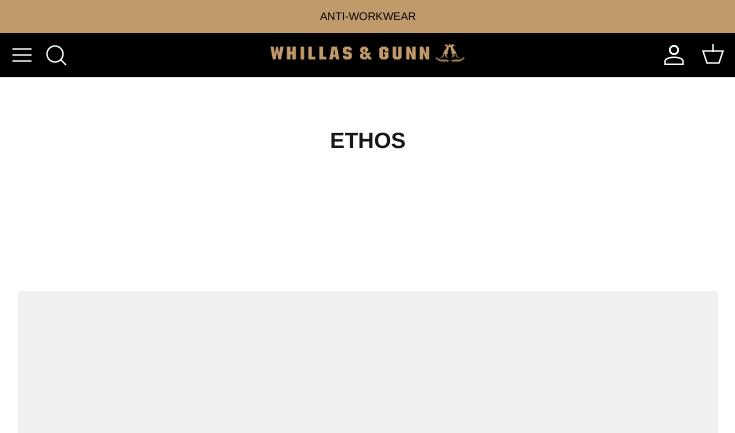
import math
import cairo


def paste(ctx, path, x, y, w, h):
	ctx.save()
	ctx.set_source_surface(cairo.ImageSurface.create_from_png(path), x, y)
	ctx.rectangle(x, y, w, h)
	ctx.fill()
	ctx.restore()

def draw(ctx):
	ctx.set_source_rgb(1, 1, 1)
	ctx.paint()
	ctx.set_source_rgb(0.757, 0.604, 0.42)
	ctx.rectangle(0, 0, 735, 33)
	ctx.fill()
	ctx.select_font_face('Arimo')
	ctx.set_font_size(11)
	ctx.set_source_rgb(0, 0, 0)
	ctx.move_to(320, 20)
	ctx.show_text('ANTI-WORKWEAR')
	ctx.rectangle(0, 33, 735, 44)
	ctx.fill()
	ctx.set_source_rgb(0.886, 0.886, 0.886)
	ctx.rectangle(0, 77, 735, 1)
	ctx.fill()
	paste(ctx, 'media/1.png', 12, 48, 20, 14)
	ctx.arc(55, 54, 8, 0, 2 * math.pi)
	ctx.set_source_rgb(1, 1, 1)
	ctx.set_line_width(1.5)
	ctx.stroke()
	ctx.new_path()
	ctx.move_to(61, 60)
	ctx.line_to(65.5, 64.5)
	ctx.set_line_cap(cairo.LINE_CAP_SQUARE)
	ctx.stroke()
	paste(ctx, 'media/2.png', 270, 43, 195, 20)
	paste(ctx, 'media/3.png', 664, 45, 20, 20)
	ctx.new_path()
	ctx.move_to(703, 51)
	ctx.line_to(723, 51)
	ctx.line_to(719, 63)
	ctx.line_to(707, 63)
	ctx.close_path()
	ctx.set_line_cap(cairo.LINE_CAP_BUTT)
	ctx.stroke()
	ctx.set_source_rgba(1, 1, 1, 0.75)
	ctx.rectangle(712, 44, 2, 8)
	ctx.fill()
	ctx.select_font_face('Arimo', cairo.FONT_SLANT_NORMAL, cairo.FONT_WEIGHT_BOLD)
	ctx.set_font_size(22)
	ctx.set_source_rgb(0.09, 0.09, 0.09)
	ctx.move_to(330, 148)
	ctx.show_text('ETHOS')
	ctx.set_source_rgb(0.941, 0.941, 0.941)
	ctx.rectangle(18, 291, 700, 142)
	ctx.fill()


surface = cairo.ImageSurface(cairo.FORMAT_RGB24, 735, 433)
ctx = cairo.Context(surface)
options = cairo.FontOptions()
options.set_hint_metrics(cairo.HINT_METRICS_OFF)
options.set_hint_style(cairo.HINT_STYLE_NONE)
ctx.set_font_options(options)
ctx.set_miter_limit(4)
draw(ctx)
surface.write_to_png('image.png')
